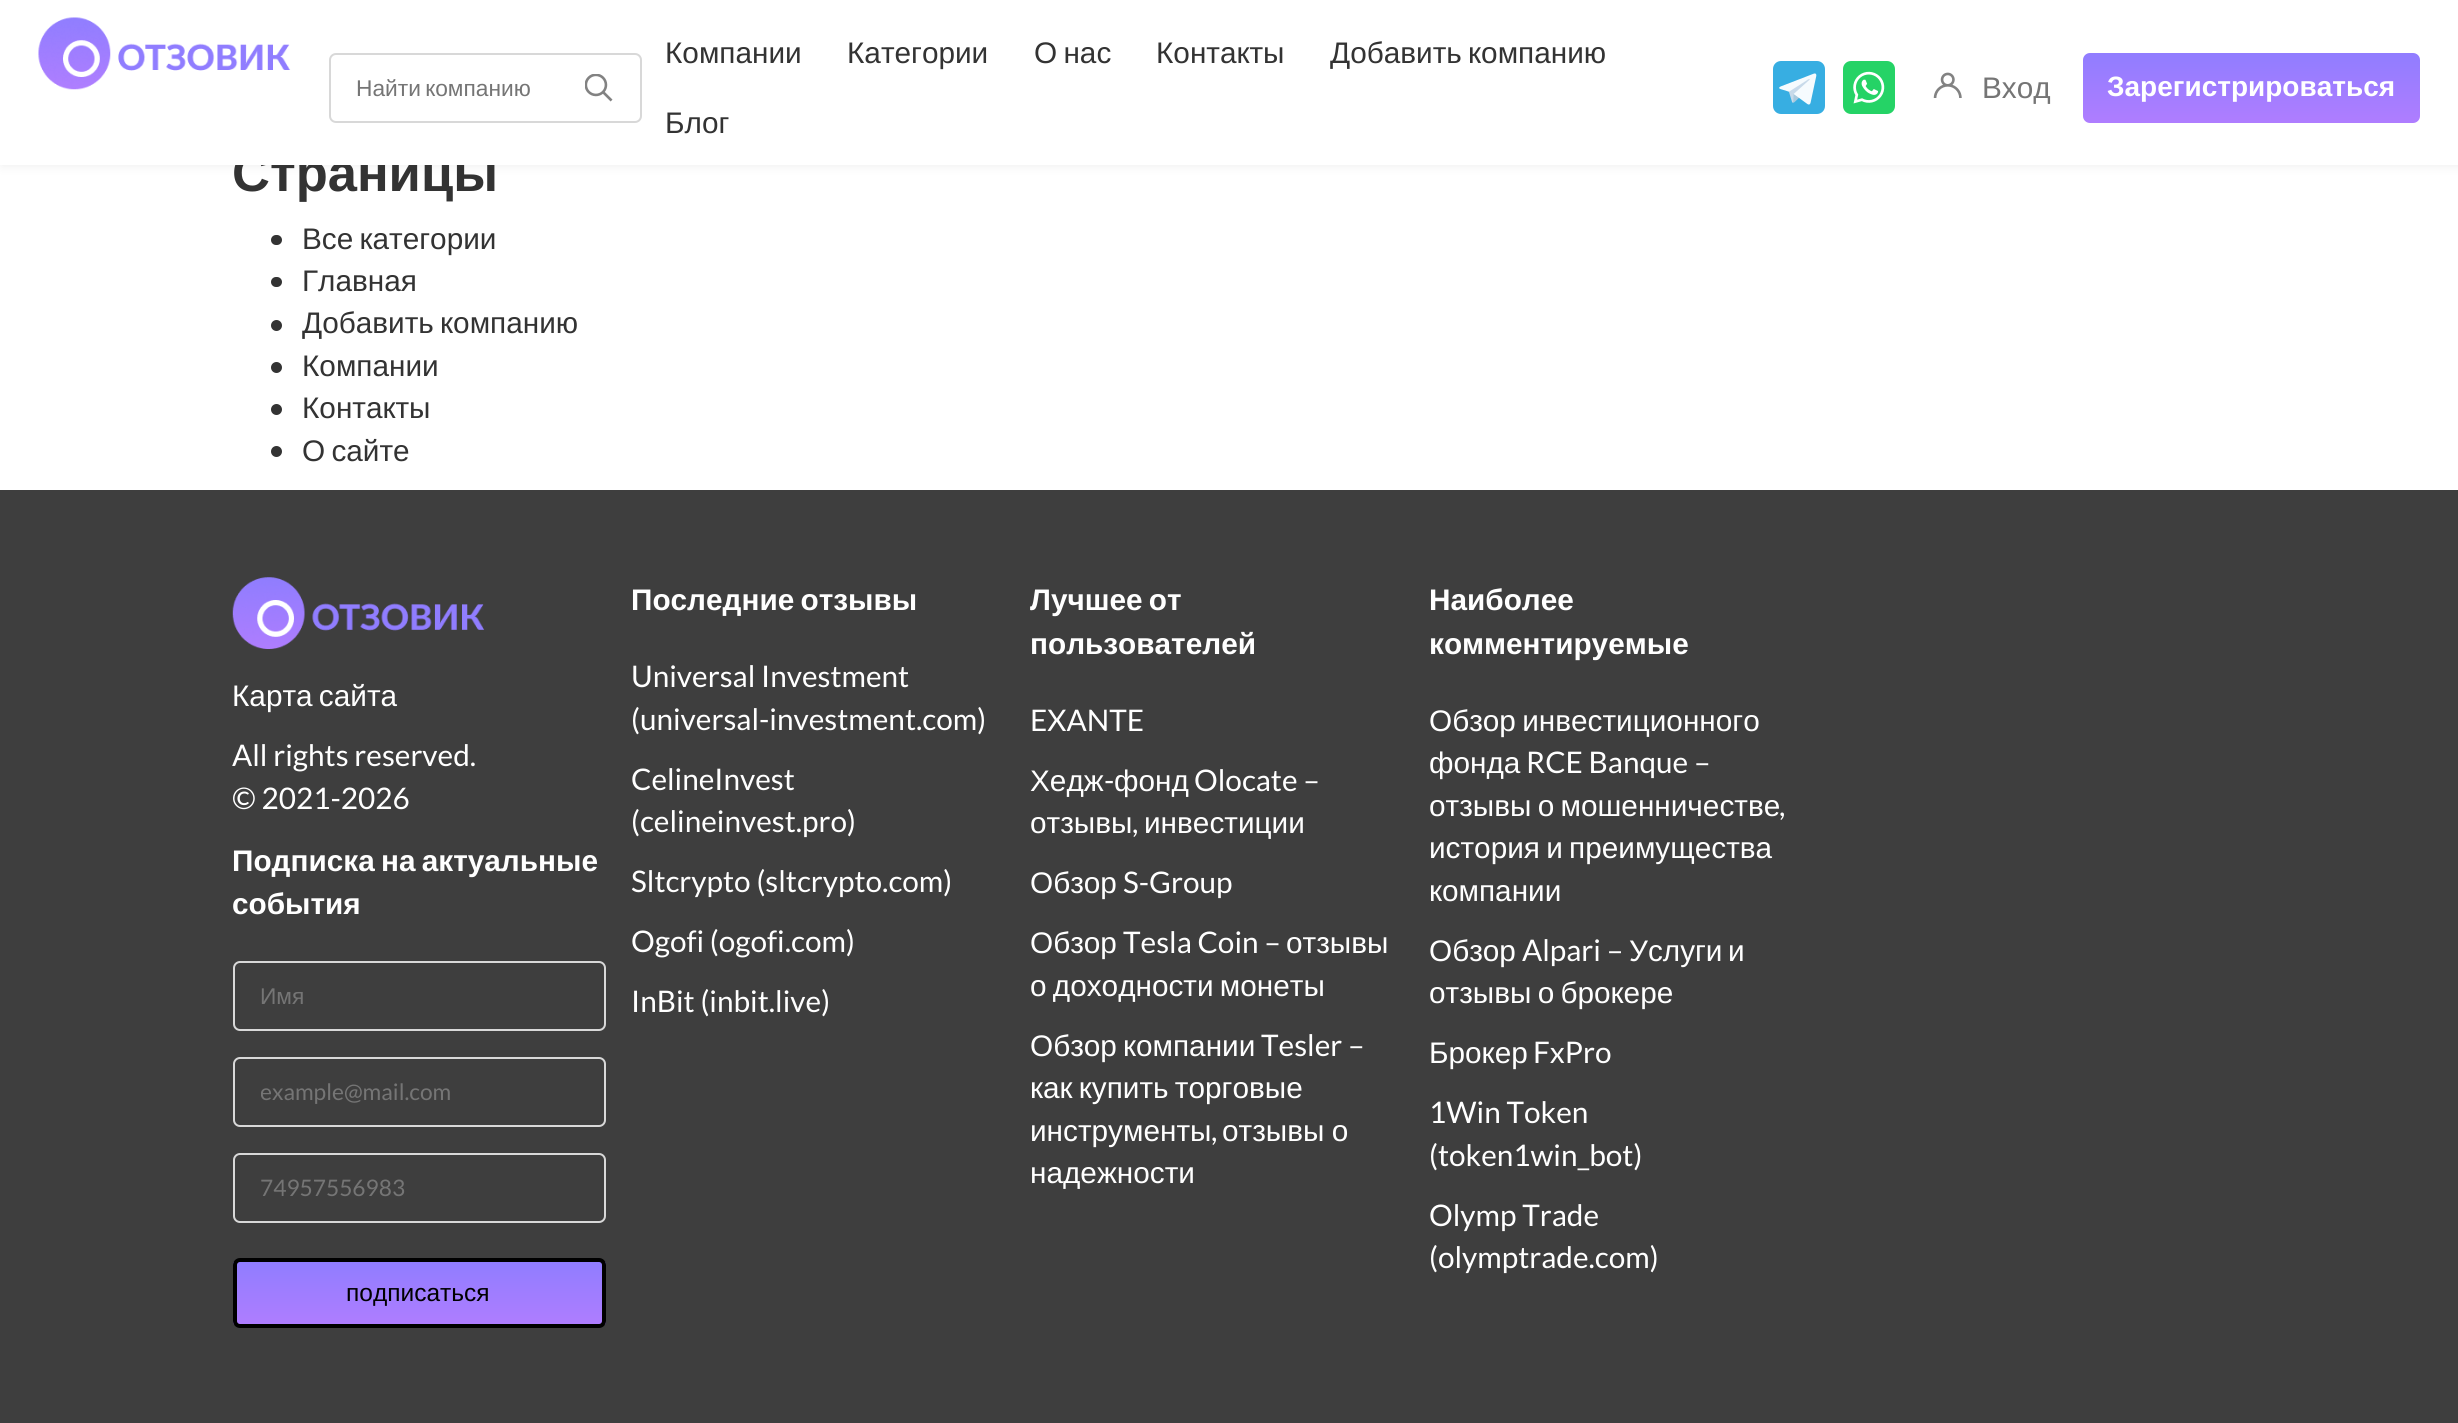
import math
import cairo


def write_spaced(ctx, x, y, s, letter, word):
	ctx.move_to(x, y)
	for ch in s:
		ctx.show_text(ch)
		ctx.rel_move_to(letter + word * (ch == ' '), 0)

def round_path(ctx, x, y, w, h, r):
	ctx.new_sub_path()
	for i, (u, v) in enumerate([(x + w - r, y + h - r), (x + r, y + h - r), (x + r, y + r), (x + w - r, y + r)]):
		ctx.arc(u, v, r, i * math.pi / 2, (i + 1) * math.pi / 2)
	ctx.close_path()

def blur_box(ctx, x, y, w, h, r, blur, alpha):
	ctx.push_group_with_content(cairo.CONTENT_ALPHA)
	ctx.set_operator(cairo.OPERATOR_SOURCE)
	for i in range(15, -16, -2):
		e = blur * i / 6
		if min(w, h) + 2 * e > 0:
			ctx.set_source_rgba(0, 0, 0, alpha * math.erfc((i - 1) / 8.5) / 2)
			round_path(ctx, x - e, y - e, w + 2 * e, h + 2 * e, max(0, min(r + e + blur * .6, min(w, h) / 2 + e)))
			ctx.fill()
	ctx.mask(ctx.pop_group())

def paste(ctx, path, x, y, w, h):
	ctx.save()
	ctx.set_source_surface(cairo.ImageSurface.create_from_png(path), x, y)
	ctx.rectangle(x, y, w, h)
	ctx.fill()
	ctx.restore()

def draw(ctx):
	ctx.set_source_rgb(1, 1, 1)
	ctx.paint()
	ctx.set_source_rgb(0.933, 0.933, 0.933)
	blur_box(ctx, 2, 2, 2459, 164, 0, 5, 1)
	ctx.select_font_face('Liberation Sans', cairo.FONT_SLANT_NORMAL, cairo.FONT_WEIGHT_BOLD)
	ctx.set_font_size(52.5)
	ctx.set_source_rgb(0.2, 0.2, 0.2)
	ctx.move_to(232, 191)
	ctx.show_text('Страницы')
	ctx.set_source_rgb(1, 1, 1)
	ctx.rectangle(0, 0, 2458, 165)
	ctx.fill()
	paste(ctx, 'media/1.png', 38, 17, 253, 73)
	round_path(ctx, 330, 54, 311, 68, 6)
	ctx.set_source_rgb(0.847, 0.847, 0.847)
	ctx.stroke()
	ctx.select_font_face('Liberation Sans')
	ctx.set_font_size(22.75)
	ctx.set_source_rgb(0.459, 0.459, 0.459)
	write_spaced(ctx, 356, 96, 'Найти компанию', 0, -2)
	paste(ctx, 'media/2.png', 585, 74, 28, 28)
	ctx.set_font_size(29.75)
	ctx.set_source_rgb(0.2, 0.2, 0.2)
	ctx.move_to(665, 63)
	ctx.show_text('Компании')
	ctx.move_to(847, 63)
	ctx.show_text('Категории')
	write_spaced(ctx, 1034, 63, 'О нас', 0, -2)
	ctx.move_to(1156, 63)
	ctx.show_text('Контакты')
	write_spaced(ctx, 1330, 63, 'Добавить компанию', 0, -2)
	ctx.move_to(665, 133)
	ctx.show_text('Блог')
	paste(ctx, 'media/3.png', 1773, 61, 52, 53)
	paste(ctx, 'media/4.png', 1843, 61, 52, 53)
	paste(ctx, 'media/5.png', 1933, 72, 29, 26)
	ctx.set_source_rgb(0.459, 0.459, 0.459)
	ctx.move_to(1982, 98)
	ctx.show_text('Вход')
	gradient = cairo.LinearGradient(2251, 52, 2251, 123)
	gradient.add_color_stop_rgba(0, 0.565, 0.49, 1, 1)
	gradient.add_color_stop_rgba(1, 0.686, 0.49, 1, 1)
	ctx.set_source(gradient)
	round_path(ctx, 2083, 53, 337, 70, 7)
	ctx.fill()
	ctx.select_font_face('Liberation Sans', cairo.FONT_SLANT_NORMAL, cairo.FONT_WEIGHT_BOLD)
	ctx.set_font_size(28)
	ctx.set_source_rgb(1, 1, 1)
	ctx.move_to(2107, 96)
	ctx.show_text('Зарегистрироваться')
	ctx.set_source_rgb(0.2, 0.2, 0.2)
	round_path(ctx, 271, 235, 11, 10, 5)
	ctx.fill()
	ctx.select_font_face('Liberation Sans')
	ctx.set_font_size(29.75)
	write_spaced(ctx, 302, 249, 'Все категории', 0, -2)
	round_path(ctx, 271, 277, 11, 10, 5)
	ctx.fill()
	ctx.move_to(302, 291)
	ctx.show_text('Главная')
	ctx.new_path()
	ctx.arc(276.5, 325.5, 5.5, 0, 2 * math.pi)
	ctx.fill()
	write_spaced(ctx, 302, 333, 'Добавить компанию', 0, -2)
	ctx.new_path()
	ctx.arc(276.5, 367.5, 5.5, 0, 2 * math.pi)
	ctx.fill()
	ctx.move_to(302, 376)
	ctx.show_text('Компании')
	ctx.new_path()
	ctx.arc(276.5, 409.5, 5.5, 0, 2 * math.pi)
	ctx.fill()
	ctx.move_to(302, 418)
	ctx.show_text('Контакты')
	ctx.new_path()
	ctx.arc(276.5, 451.5, 5.5, 0, 2 * math.pi)
	ctx.fill()
	write_spaced(ctx, 302, 461, 'О сайте', 0, -2)
	ctx.set_source_rgb(0.243, 0.243, 0.243)
	ctx.rectangle(0, 490, 2458, 933)
	ctx.fill()
	paste(ctx, 'media/6.png', 232, 577, 253, 72)
	ctx.set_source_rgb(1, 1, 1)
	write_spaced(ctx, 232, 706, 'Карта сайта', 0, -2)
	ctx.select_font_face('Lato')
	ctx.move_to(232, 766)
	ctx.show_text('All rights reserved.')
	ctx.move_to(232, 809)
	ctx.show_text('© 2021-2026')
	ctx.select_font_face('Liberation Sans', cairo.FONT_SLANT_NORMAL, cairo.FONT_WEIGHT_BOLD)
	write_spaced(ctx, 232, 871, 'Подписка на актуальные', 0, -2)
	ctx.move_to(232, 914)
	ctx.show_text('события')
	round_path(ctx, 234, 962, 371, 68, 6)
	ctx.set_source_rgb(0.847, 0.847, 0.847)
	ctx.stroke()
	ctx.select_font_face('Liberation Sans')
	ctx.set_font_size(22.75)
	ctx.set_source_rgb(0.459, 0.459, 0.459)
	ctx.move_to(260, 1004)
	ctx.show_text('Имя')
	round_path(ctx, 234, 1058, 371, 68, 6)
	ctx.set_source_rgb(0.847, 0.847, 0.847)
	ctx.stroke()
	ctx.save()
	ctx.rectangle(261, 1078, 317, 28)
	ctx.clip()
	ctx.select_font_face('Lato')
	ctx.set_source_rgb(0.459, 0.459, 0.459)
	ctx.move_to(260, 1100)
	ctx.show_text('example@mail.com')
	ctx.restore()
	round_path(ctx, 234, 1154, 371, 68, 6)
	ctx.stroke()
	ctx.select_font_face('Lato')
	ctx.set_source_rgb(0.459, 0.459, 0.459)
	ctx.move_to(260, 1196)
	ctx.show_text('74957556983')
	ctx.save()
	round_path(ctx, 233, 1258, 373, 70, 7)
	ctx.clip()
	gradient = cairo.LinearGradient(419, 1262, 419, 1325)
	gradient.add_color_stop_rgba(0, 0.565, 0.49, 1, 1)
	gradient.add_color_stop_rgba(1, 0.686, 0.49, 1, 1)
	ctx.set_source(gradient)
	ctx.rectangle(233, 1262, 373, 63)
	ctx.fill()
	ctx.restore()
	round_path(ctx, 235, 1260, 369, 66, 5)
	ctx.set_source_rgb(0, 0, 0)
	ctx.set_line_width(4)
	ctx.stroke()
	ctx.select_font_face('Liberation Sans')
	ctx.set_font_size(24.5)
	ctx.move_to(346, 1301)
	ctx.show_text('подписаться')
	ctx.select_font_face('Liberation Sans', cairo.FONT_SLANT_NORMAL, cairo.FONT_WEIGHT_BOLD)
	ctx.set_font_size(29.75)
	ctx.set_source_rgb(1, 1, 1)
	write_spaced(ctx, 631, 610, 'Последние отзывы', 0, -2)
	ctx.select_font_face('Lato')
	for x, y, s in [
		(631, 687, 'Universal Investment'),
		(631, 730, '(universal-investment.com)'),
		(631, 790, 'CelineInvest'),
		(631, 832, '(celineinvest.pro)'),
		(631, 892, 'Sltcrypto (sltcrypto.com)'),
		(631, 952, 'Ogofi (ogofi.com)'),
		(631, 1012, 'InBit (inbit.live)'),
	]:
		ctx.move_to(x, y)
		ctx.show_text(s)
	ctx.select_font_face('Liberation Sans', cairo.FONT_SLANT_NORMAL, cairo.FONT_WEIGHT_BOLD)
	write_spaced(ctx, 1030, 610, 'Лучшее от', 0, -2)
	ctx.move_to(1030, 654)
	ctx.show_text('пользователей')
	ctx.select_font_face('Lato')
	ctx.move_to(1030, 731)
	ctx.show_text('EXANTE')
	ctx.select_font_face('Liberation Sans')
	ctx.move_to(1030, 791)
	ctx.show_text('Хедж')
	ctx.select_font_face('Lato')
	ctx.move_to(1104, 791)
	ctx.show_text('-')
	ctx.select_font_face('Liberation Sans')
	ctx.move_to(1114, 791)
	ctx.show_text('фонд')
	ctx.select_font_face('Lato')
	ctx.move_to(1194, 791)
	ctx.show_text('Olocate –')
	ctx.select_font_face('Liberation Sans')
	ctx.move_to(1030, 833)
	ctx.show_text('отзывы')
	ctx.select_font_face('Lato')
	ctx.move_to(1132, 833)
	ctx.show_text(',')
	ctx.select_font_face('Liberation Sans')
	ctx.move_to(1144, 833)
	ctx.show_text('инвестиции')
	ctx.move_to(1030, 893)
	ctx.show_text('Обзор')
	ctx.select_font_face('Lato')
	ctx.move_to(1123, 893)
	ctx.show_text('S-Group')
	ctx.select_font_face('Liberation Sans')
	ctx.move_to(1030, 953)
	ctx.show_text('Обзор')
	ctx.select_font_face('Lato')
	ctx.move_to(1123, 953)
	ctx.show_text('Tesla Coin –')
	ctx.select_font_face('Liberation Sans')
	ctx.move_to(1286, 953)
	ctx.show_text('отзывы')
	write_spaced(ctx, 1030, 996, 'о доходности монеты', 0, -2)
	ctx.move_to(1030, 1056)
	ctx.show_text('Обзор')
	ctx.move_to(1123, 1056)
	ctx.show_text('компании')
	ctx.select_font_face('Lato')
	ctx.move_to(1261, 1056)
	ctx.show_text('Tesler –')
	ctx.select_font_face('Liberation Sans')
	write_spaced(ctx, 1030, 1098, 'как купить торговые', 0, -2)
	ctx.move_to(1030, 1141)
	ctx.show_text('инструменты')
	ctx.select_font_face('Lato')
	ctx.move_to(1211, 1141)
	ctx.show_text(',')
	ctx.select_font_face('Liberation Sans')
	write_spaced(ctx, 1222, 1141, 'отзывы о', 0, -1)
	ctx.move_to(1030, 1183)
	ctx.show_text('надежности')
	ctx.select_font_face('Liberation Sans', cairo.FONT_SLANT_NORMAL, cairo.FONT_WEIGHT_BOLD)
	ctx.move_to(1429, 610)
	ctx.show_text('Наиболее')
	ctx.move_to(1429, 654)
	ctx.show_text('комментируемые')
	ctx.select_font_face('Liberation Sans')
	write_spaced(ctx, 1429, 731, 'Обзор инвестиционного', 0, -2)
	ctx.move_to(1429, 773)
	ctx.show_text('фонда')
	ctx.select_font_face('Lato')
	ctx.move_to(1526, 773)
	ctx.show_text('RCE Banque –')
	ctx.select_font_face('Liberation Sans')
	write_spaced(ctx, 1429, 816, 'отзывы о мошенничестве', 0, -2)
	ctx.select_font_face('Lato')
	ctx.move_to(1779, 816)
	ctx.show_text(',')
	ctx.select_font_face('Liberation Sans')
	write_spaced(ctx, 1429, 858, 'история и преимущества', 0, -2)
	ctx.move_to(1429, 901)
	ctx.show_text('компании')
	ctx.move_to(1429, 961)
	ctx.show_text('Обзор')
	ctx.select_font_face('Lato')
	ctx.move_to(1522, 961)
	ctx.show_text('Alpari –')
	ctx.select_font_face('Liberation Sans')
	ctx.move_to(1629, 961)
	ctx.show_text('Услуги')
	ctx.move_to(1728, 961)
	ctx.show_text('и')
	write_spaced(ctx, 1429, 1003, 'отзывы о брокере', 0, -2)
	ctx.move_to(1429, 1063)
	ctx.show_text('Брокер')
	ctx.select_font_face('Lato')
	for x, y, s in [
		(1533, 1063, 'FxPro'),
		(1429, 1123, '1Win Token'),
		(1429, 1166, '(token1win_bot)'),
		(1429, 1226, 'Olymp Trade'),
		(1429, 1268, '(olymptrade.com)'),
	]:
		ctx.move_to(x, y)
		ctx.show_text(s)


surface = cairo.ImageSurface(cairo.FORMAT_RGB24, 2458, 1423)
ctx = cairo.Context(surface)
options = cairo.FontOptions()
options.set_hint_metrics(cairo.HINT_METRICS_OFF)
options.set_hint_style(cairo.HINT_STYLE_NONE)
ctx.set_font_options(options)
ctx.set_miter_limit(4)
draw(ctx)
surface.write_to_png('image.png')
